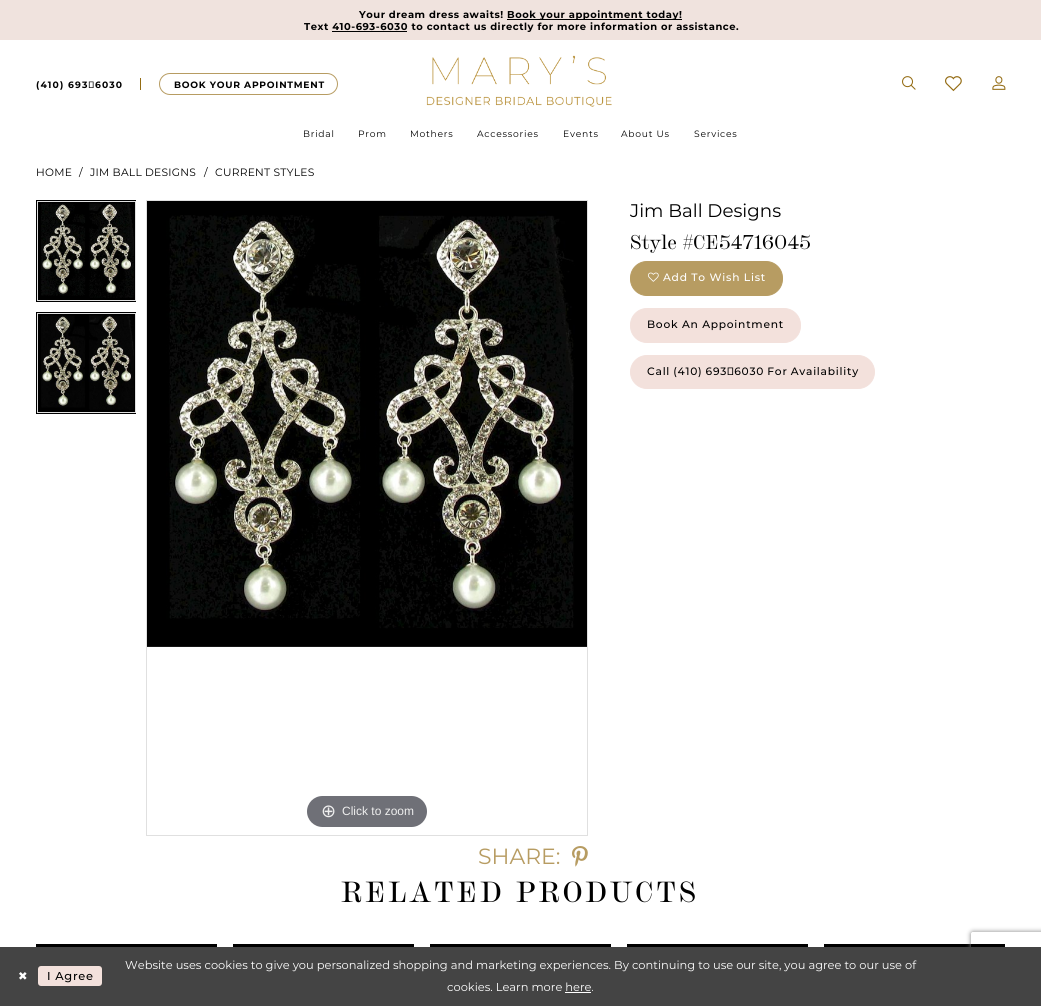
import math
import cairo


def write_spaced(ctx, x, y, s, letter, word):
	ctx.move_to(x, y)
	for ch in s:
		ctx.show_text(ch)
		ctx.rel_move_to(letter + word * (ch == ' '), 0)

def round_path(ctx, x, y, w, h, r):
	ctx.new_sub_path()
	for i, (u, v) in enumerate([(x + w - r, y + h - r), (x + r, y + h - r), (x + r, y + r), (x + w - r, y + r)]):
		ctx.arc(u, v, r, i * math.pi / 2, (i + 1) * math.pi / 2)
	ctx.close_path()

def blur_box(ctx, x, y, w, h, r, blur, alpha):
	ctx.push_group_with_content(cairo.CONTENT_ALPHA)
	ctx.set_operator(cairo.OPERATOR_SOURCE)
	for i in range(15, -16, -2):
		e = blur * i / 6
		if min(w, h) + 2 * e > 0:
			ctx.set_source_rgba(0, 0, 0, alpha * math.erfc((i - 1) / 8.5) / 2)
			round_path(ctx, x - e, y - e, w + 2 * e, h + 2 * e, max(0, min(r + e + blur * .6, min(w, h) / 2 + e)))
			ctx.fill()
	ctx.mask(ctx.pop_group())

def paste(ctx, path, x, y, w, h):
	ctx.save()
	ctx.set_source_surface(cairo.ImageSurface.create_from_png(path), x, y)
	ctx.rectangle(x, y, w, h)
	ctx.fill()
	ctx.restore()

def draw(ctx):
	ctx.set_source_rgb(1, 1, 1)
	ctx.paint()
	ctx.set_source_rgb(0.941, 0.89, 0.871)
	ctx.rectangle(0, 0, 1041, 40)
	ctx.fill()
	ctx.select_font_face('Montserrat', cairo.FONT_SLANT_NORMAL, cairo.FONT_WEIGHT_BOLD)
	ctx.set_font_size(9.95)
	ctx.set_source_rgb(0, 0, 0)
	write_spaced(ctx, 359, 18, 'Your dream dress awaits!', 0.53, 0)
	ctx.rectangle(507, 19, 175, 1)
	ctx.fill()
	write_spaced(ctx, 507, 18, 'Book your appointment today!', 0.53, 0)
	write_spaced(ctx, 304, 30, 'Text 410-693-6030 to contact us directly for more information or assistance.', 0.53, 0)
	ctx.rectangle(332, 31, 75, 1)
	ctx.fill()
	ctx.set_font_size(9.2)
	write_spaced(ctx, 36, 88, '(410) 693‑6030', 1.1, 0)
	ctx.set_source_rgb(0.58, 0.424, 0.078)
	ctx.rectangle(140, 78, 1, 12)
	ctx.fill()
	round_path(ctx, 159.5, 73.5, 178, 21, 10.5)
	ctx.set_source_rgb(0.718, 0.612, 0.384)
	ctx.set_line_width(1)
	ctx.stroke()
	ctx.set_source_rgb(0, 0, 0)
	write_spaced(ctx, 174, 88, 'BOOK YOUR APPOINTMENT', 0.75, 0)
	paste(ctx, 'media/1.png', 426, 55, 186, 52)
	paste(ctx, 'media/2.png', 902, 76, 14, 14)
	paste(ctx, 'media/3.png', 945, 76, 17, 16)
	paste(ctx, 'media/4.png', 992, 76, 14, 14)
	ctx.select_font_face('Montserrat')
	for x, y, s in [
		(303, 137, 'Bridal'),
		(358, 137, 'Prom'),
		(410, 137, 'Mothers'),
		(477, 137, 'Accessories'),
		(563, 137, 'Events'),
		(621, 137, 'About Us'),
		(694, 137, 'Services'),
	]:
		write_spaced(ctx, x, y, s, 0.75, 0)
	ctx.set_font_size(10.7)
	for x, y, s in [
		(36, 176, 'HOME'),
		(79, 176, '/'),
		(90, 176, 'JIM BALL DESIGNS'),
		(204, 176, '/'),
		(215, 176, 'CURRENT STYLES'),
	]:
		write_spaced(ctx, x, y, s, 0.25, 0)
	ctx.set_font_size(18.25)
	ctx.move_to(630, 217)
	ctx.show_text('Jim Ball Designs')
	ctx.select_font_face('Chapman')
	ctx.set_font_size(19.9)
	ctx.move_to(630, 249)
	ctx.show_text('Style #CE54716045')
	ctx.set_source_rgb(0.718, 0.612, 0.384)
	round_path(ctx, 630.5, 261.5, 152, 34, 16.5)
	ctx.fill_preserve()
	ctx.stroke()
	paste(ctx, 'media/5.png', 648, 272, 11, 10)
	ctx.select_font_face('Montserrat Medium')
	ctx.set_font_size(10.7)
	ctx.set_source_rgb(1, 1, 1)
	write_spaced(ctx, 663, 281, 'Add To Wish List', 0.75, 0)
	ctx.set_source_rgb(0.953, 0.882, 0.863)
	round_path(ctx, 630.5, 308.5, 170, 34, 16.5)
	ctx.fill_preserve()
	ctx.stroke()
	ctx.set_source_rgb(0, 0, 0)
	write_spaced(ctx, 647, 328, 'Book An Appointment', 0.75, 0)
	ctx.set_source_rgb(0.953, 0.882, 0.863)
	round_path(ctx, 630.5, 355.5, 244, 33, 16.5)
	ctx.fill_preserve()
	ctx.stroke()
	ctx.set_source_rgb(0, 0, 0)
	write_spaced(ctx, 647, 375, 'Call (410) 693‑6030 For Availability', 0.75, -0.5)
	paste(ctx, 'media/6.png', 36, 200, 100, 102)
	ctx.rectangle(37.5, 201.5, 98, 99)
	ctx.set_source_rgb(0.878, 0.878, 0.878)
	ctx.stroke()
	paste(ctx, 'media/7.png', 36, 312, 100, 102)
	ctx.rectangle(37.5, 313.5, 98, 99)
	ctx.stroke()
	ctx.rectangle(146.5, 200.5, 441, 635)
	ctx.stroke()
	paste(ctx, 'media/8.png', 147, 201, 440, 446)
	ctx.set_source_rgb(0.435, 0.439, 0.467)
	round_path(ctx, 307, 796, 120, 31, 15.5)
	ctx.fill()
	ctx.select_font_face('DejaVu Sans')
	ctx.set_font_size(18)
	ctx.set_source_rgb(0.933, 0.933, 0.933)
	ctx.move_to(321, 817)
	ctx.show_text('⊕')
	ctx.select_font_face('Liberation Sans')
	ctx.set_font_size(12)
	ctx.move_to(342, 815)
	ctx.show_text('Click to zoom')
	ctx.select_font_face('Montserrat')
	ctx.set_font_size(22)
	ctx.set_source_rgb(0.718, 0.612, 0.384)
	ctx.move_to(478, 864)
	ctx.show_text('SHARE:')
	paste(ctx, 'media/9.png', 572, 846, 16, 21)
	ctx.select_font_face('Chapman Medium')
	ctx.set_font_size(29)
	ctx.set_source_rgb(0, 0, 0)
	write_spaced(ctx, 341, 902, 'RELATED PRODUCTS', 2.9, 0)
	paste(ctx, 'media/10.png', 36, 944, 181, 3)
	paste(ctx, 'media/10.png', 233, 944, 181, 3)
	paste(ctx, 'media/10.png', 430, 944, 181, 3)
	paste(ctx, 'media/10.png', 627, 944, 181, 3)
	paste(ctx, 'media/10.png', 824, 944, 181, 3)
	ctx.save()
	ctx.set_fill_rule(cairo.FILL_RULE_EVEN_ODD)
	ctx.new_path()
	ctx.move_to(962, 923)
	ctx.line_to(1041, 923)
	ctx.line_to(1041, 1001)
	ctx.line_to(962, 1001)
	ctx.close_path()
	ctx.move_to(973, 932)
	ctx.line_to(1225, 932)
	ctx.curve_to(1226, 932, 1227, 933, 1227, 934)
	ctx.line_to(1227, 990)
	ctx.curve_to(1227, 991, 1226, 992, 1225, 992)
	ctx.line_to(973, 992)
	ctx.curve_to(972, 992, 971, 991, 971, 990)
	ctx.line_to(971, 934)
	ctx.curve_to(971, 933, 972, 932, 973, 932)
	ctx.close_path()
	ctx.clip()
	ctx.set_source_rgb(0.502, 0.502, 0.502)
	blur_box(ctx, 971, 932, 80, 60, 2, 2.5, 1)
	ctx.restore()
	ctx.set_source_rgb(0.267, 0.267, 0.267)
	ctx.rectangle(0, 947, 1041, 59)
	ctx.fill()
	ctx.select_font_face('DejaVu Sans')
	ctx.set_font_size(11.45)
	ctx.set_source_rgb(1, 1, 1)
	write_spaced(ctx, 18, 980, '✖', 0.75, 0)
	ctx.set_source_rgb(0.953, 0.882, 0.863)
	round_path(ctx, 38, 966, 64, 20, 3)
	ctx.fill()
	ctx.select_font_face('Montserrat Medium')
	ctx.set_source_rgb(0, 0, 0)
	write_spaced(ctx, 47, 980, 'I Agree', 0.75, 0)
	ctx.select_font_face('Montserrat')
	ctx.set_source_rgb(1, 1, 1)
	ctx.move_to(125, 969)
	ctx.show_text('Website uses cookies to give you personalized shopping and marketing experiences. By continuing to use our site, you agree to our use of')
	ctx.move_to(447, 991)
	ctx.show_text('cookies. Learn more here.')
	ctx.rectangle(565, 992, 26, 1)
	ctx.fill()


surface = cairo.ImageSurface(cairo.FORMAT_RGB24, 1041, 1006)
ctx = cairo.Context(surface)
options = cairo.FontOptions()
options.set_hint_metrics(cairo.HINT_METRICS_OFF)
options.set_hint_style(cairo.HINT_STYLE_NONE)
ctx.set_font_options(options)
ctx.set_miter_limit(4)
draw(ctx)
surface.write_to_png('image.png')
